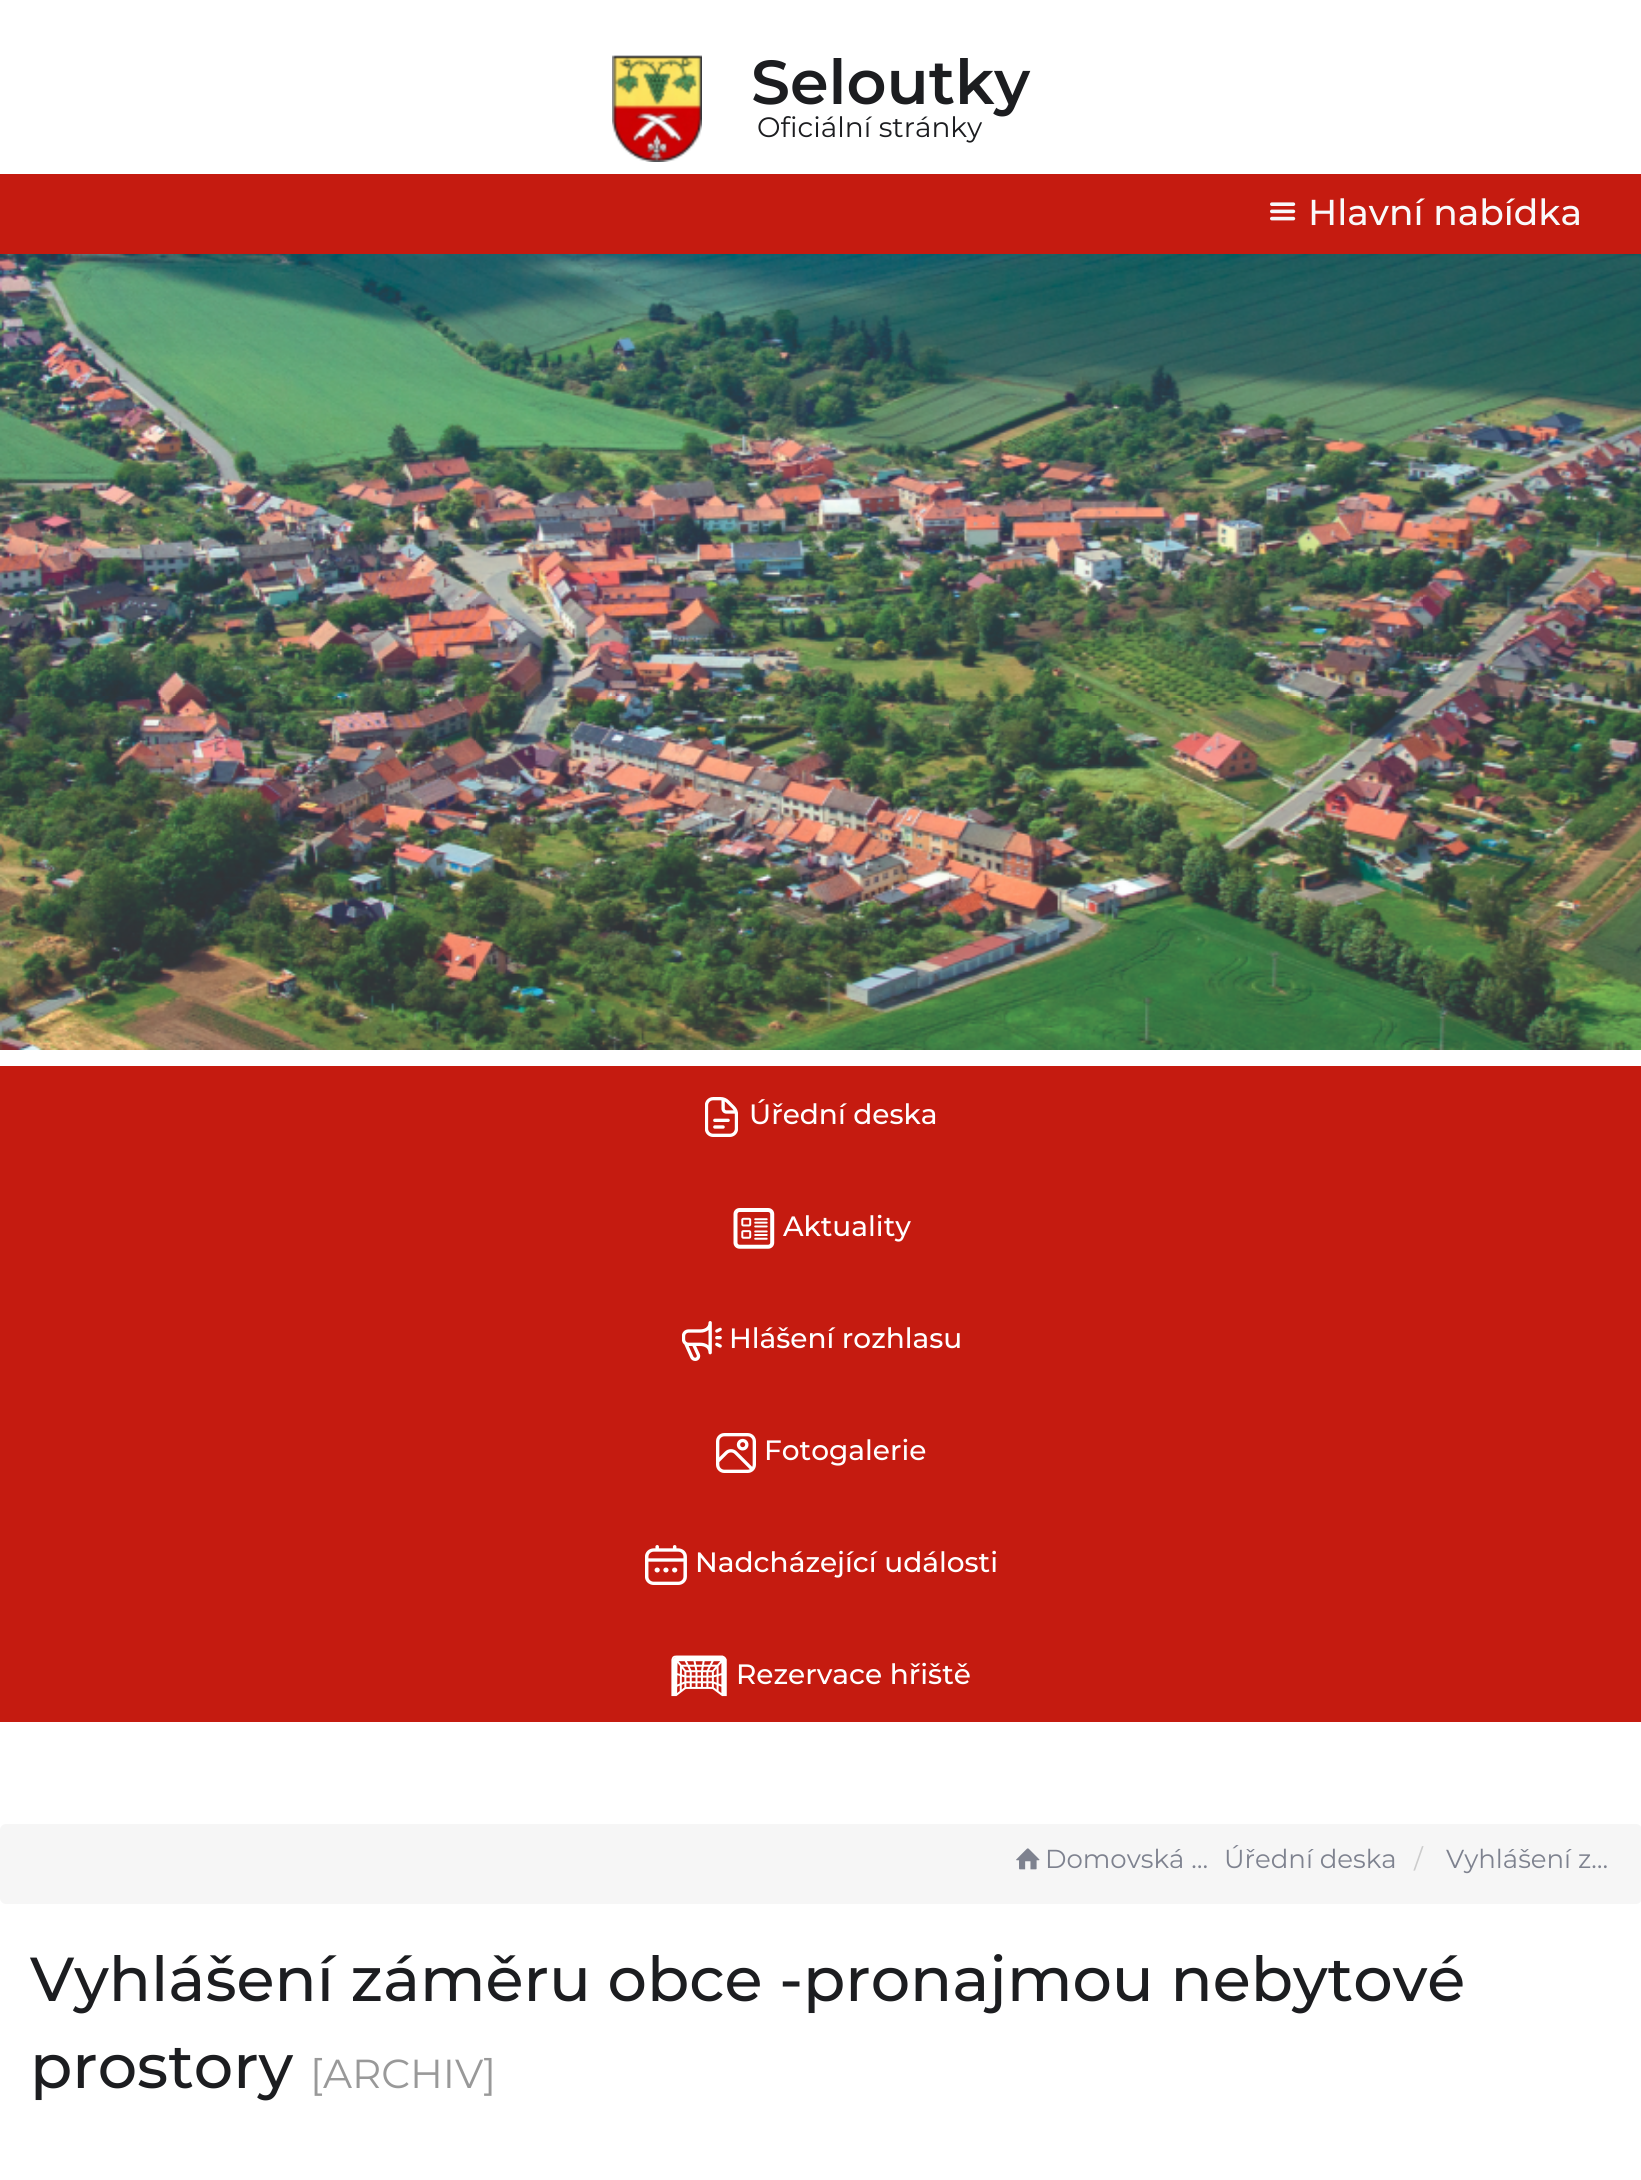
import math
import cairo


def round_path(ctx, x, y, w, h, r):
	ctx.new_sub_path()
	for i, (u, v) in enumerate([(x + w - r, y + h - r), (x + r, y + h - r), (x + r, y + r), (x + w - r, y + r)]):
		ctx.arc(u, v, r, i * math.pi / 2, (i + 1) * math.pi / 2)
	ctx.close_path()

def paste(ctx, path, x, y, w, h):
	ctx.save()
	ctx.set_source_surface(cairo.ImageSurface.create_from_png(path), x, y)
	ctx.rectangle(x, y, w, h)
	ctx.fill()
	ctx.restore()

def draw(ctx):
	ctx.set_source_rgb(1, 1, 1)
	ctx.paint()
	paste(ctx, 'media/1.png', 612, 55, 90, 107)
	ctx.select_font_face('Montserrat SemiBold')
	ctx.set_font_size(62)
	ctx.set_source_rgb(0.11, 0.114, 0.125)
	ctx.move_to(751, 104)
	ctx.show_text('Seloutky')
	ctx.select_font_face('Montserrat')
	ctx.set_font_size(28)
	ctx.move_to(757, 137)
	ctx.show_text('Oficiální stránky')
	ctx.set_source_rgb(0.773, 0.106, 0.063)
	ctx.rectangle(0, 174, 1641, 80)
	ctx.fill()
	paste(ctx, 'media/2.png', 1270, 202, 26, 19)
	ctx.select_font_face('Montserrat Medium')
	ctx.set_font_size(36)
	ctx.set_source_rgb(0.973, 0.973, 0.98)
	ctx.move_to(1308, 225)
	ctx.show_text('Hlavní nabídka')
	paste(ctx, 'media/3.png', 0, 254, 1641, 796)
	ctx.set_source_rgb(0.773, 0.106, 0.063)
	ctx.rectangle(0, 1066, 1641, 656)
	ctx.fill()
	paste(ctx, 'media/4.png', 705, 1097, 33, 40)
	ctx.set_font_size(28)
	ctx.set_source_rgb(1, 1, 1)
	ctx.move_to(749, 1124)
	ctx.show_text('Úřední deska')
	paste(ctx, 'media/5.png', 733, 1208, 42, 41)
	ctx.move_to(783, 1236)
	ctx.show_text('Aktuality')
	paste(ctx, 'media/6.png', 682, 1321, 40, 40)
	ctx.move_to(729, 1348)
	ctx.show_text('Hlášení rozhlasu')
	paste(ctx, 'media/7.png', 716, 1433, 40, 40)
	ctx.move_to(764, 1460)
	ctx.show_text('Fotogalerie')
	paste(ctx, 'media/8.png', 645, 1545, 42, 40)
	ctx.move_to(695, 1572)
	ctx.show_text('Nadcházející události')
	paste(ctx, 'media/9.png', 671, 1655, 56, 42)
	ctx.move_to(736, 1684)
	ctx.show_text('Rezervace hřiště')
	ctx.set_source_rgb(0.961, 0.961, 0.961)
	round_path(ctx, 0, 1824, 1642, 80, 6)
	ctx.fill()
	paste(ctx, 'media/10.png', 1016, 1848, 24, 22)
	ctx.select_font_face('Montserrat')
	ctx.set_font_size(26)
	ctx.set_source_rgb(0.494, 0.51, 0.561)
	ctx.move_to(1045, 1868)
	ctx.show_text('Domovská …')
	ctx.move_to(1224, 1868)
	ctx.show_text('Úřední deska')
	ctx.set_source_rgb(0.8, 0.8, 0.8)
	ctx.move_to(1414, 1868)
	ctx.show_text('/')
	ctx.set_source_rgb(0.494, 0.51, 0.561)
	ctx.move_to(1446, 1868)
	ctx.show_text('Vyhlášení z…')
	ctx.select_font_face('Montserrat Medium')
	ctx.set_font_size(62)
	ctx.set_source_rgb(0.11, 0.114, 0.125)
	ctx.move_to(30, 2001)
	ctx.show_text('Vyhlášení záměru obce -pronajmou nebytové')
	ctx.move_to(30, 2088)
	ctx.show_text('prostory')
	ctx.select_font_face('Montserrat')
	ctx.set_font_size(40.5)
	ctx.set_source_rgb(0.6, 0.6, 0.6)
	ctx.move_to(310, 2088)
	ctx.show_text('[ARCHIV]')


surface = cairo.ImageSurface(cairo.FORMAT_RGB24, 1641, 2180)
ctx = cairo.Context(surface)
options = cairo.FontOptions()
options.set_hint_metrics(cairo.HINT_METRICS_OFF)
options.set_hint_style(cairo.HINT_STYLE_NONE)
ctx.set_font_options(options)
ctx.set_miter_limit(4)
draw(ctx)
surface.write_to_png('image.png')
